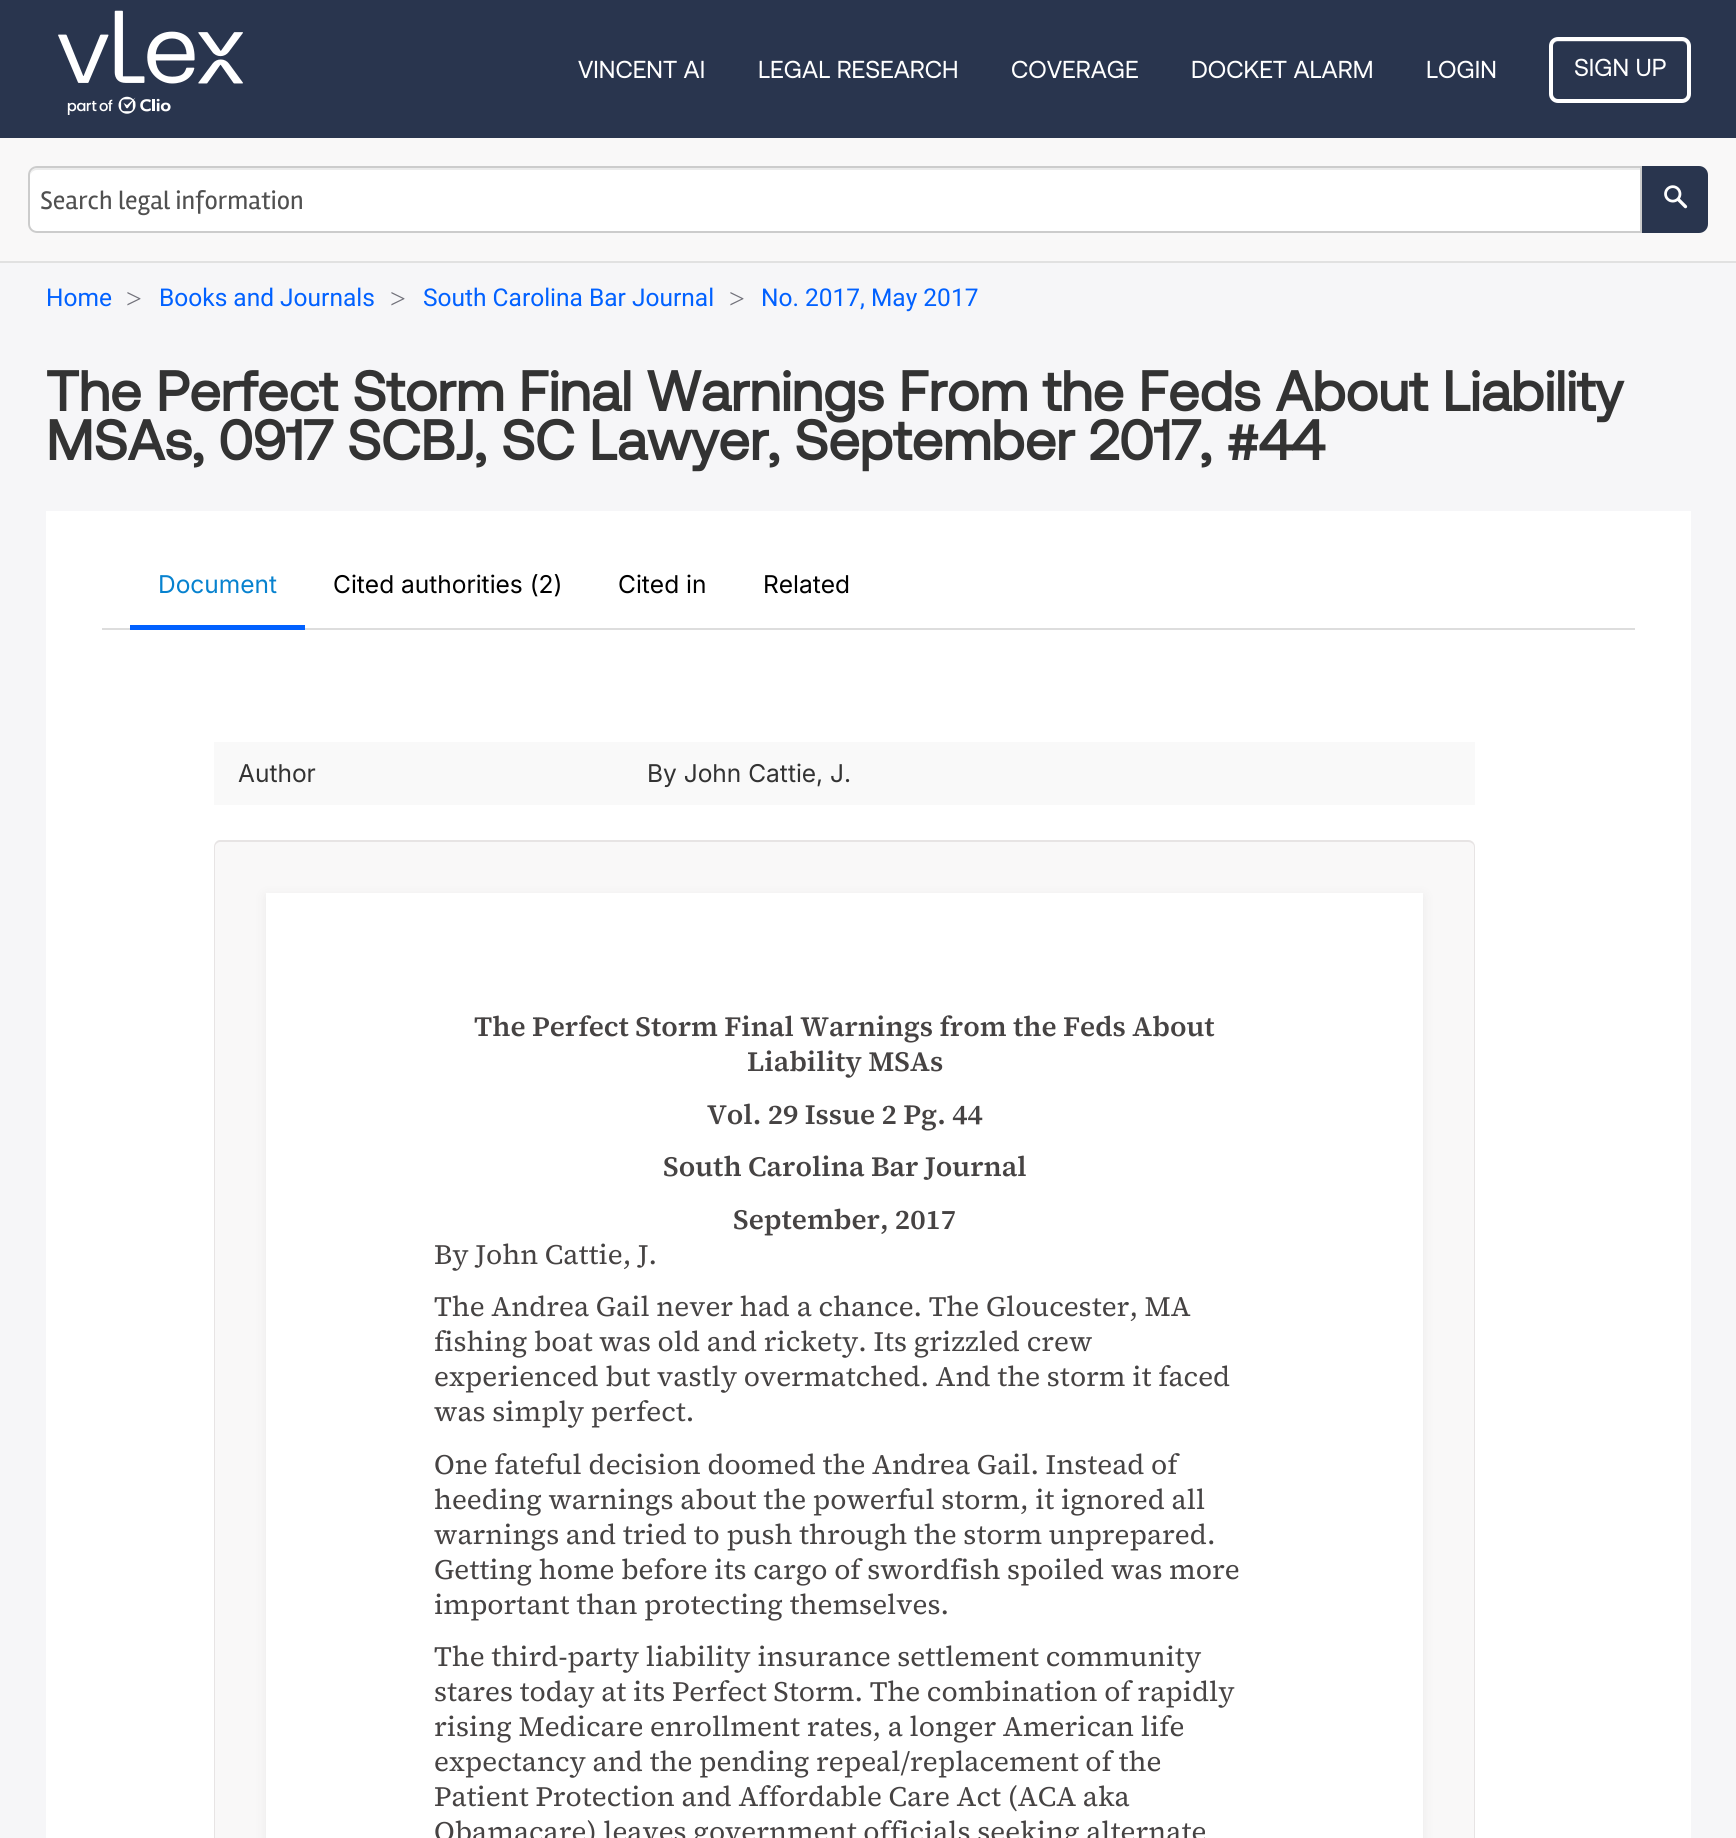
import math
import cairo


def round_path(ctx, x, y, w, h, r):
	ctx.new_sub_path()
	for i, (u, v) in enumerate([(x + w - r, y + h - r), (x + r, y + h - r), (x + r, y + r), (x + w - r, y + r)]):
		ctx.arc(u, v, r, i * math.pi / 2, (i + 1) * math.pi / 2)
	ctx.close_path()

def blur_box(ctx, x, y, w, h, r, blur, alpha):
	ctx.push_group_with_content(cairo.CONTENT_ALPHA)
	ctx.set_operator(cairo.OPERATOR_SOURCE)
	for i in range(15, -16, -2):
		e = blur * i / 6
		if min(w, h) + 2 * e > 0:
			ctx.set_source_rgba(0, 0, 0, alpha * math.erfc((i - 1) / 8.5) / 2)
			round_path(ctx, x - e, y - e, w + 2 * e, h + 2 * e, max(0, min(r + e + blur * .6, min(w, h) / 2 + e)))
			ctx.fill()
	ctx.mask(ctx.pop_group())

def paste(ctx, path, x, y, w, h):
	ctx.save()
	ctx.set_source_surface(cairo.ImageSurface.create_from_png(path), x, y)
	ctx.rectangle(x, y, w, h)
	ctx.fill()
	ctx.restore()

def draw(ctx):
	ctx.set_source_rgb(0.961, 0.961, 0.969)
	ctx.paint()
	ctx.set_source_rgb(0.161, 0.208, 0.306)
	ctx.rectangle(0, 0, 1736, 138)
	ctx.fill()
	paste(ctx, 'media/1.png', 58, 10, 185, 105)
	ctx.select_font_face('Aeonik')
	ctx.set_font_size(24.5)
	ctx.set_source_rgb(1, 1, 1)
	for x, y, s in [
		(578, 78, 'VINCENT AI'),
		(758, 78, 'LEGAL RESEARCH'),
		(1011, 78, 'COVERAGE'),
		(1191, 78, 'DOCKET ALARM'),
		(1426, 78, 'LOGIN'),
	]:
		ctx.move_to(x, y)
		ctx.show_text(s)
	ctx.set_source_rgb(0.329, 0.365, 0.443)
	ctx.new_path()
	ctx.move_to(1558, 42)
	ctx.line_to(1682, 42)
	ctx.curve_to(1685, 42, 1687, 44, 1687, 47)
	ctx.line_to(1687, 45)
	ctx.curve_to(1687, 42, 1685, 40, 1682, 40)
	ctx.line_to(1557, 40)
	ctx.curve_to(1554, 40, 1552, 42, 1552, 45)
	ctx.line_to(1552, 47)
	ctx.curve_to(1552, 44, 1555, 42, 1558, 42)
	ctx.close_path()
	ctx.fill()
	round_path(ctx, 1551, 39, 138, 62, 7)
	ctx.set_source_rgb(1, 1, 1)
	ctx.set_line_width(4)
	ctx.stroke()
	ctx.move_to(1574, 76)
	ctx.show_text('SIGN UP')
	ctx.set_source_rgb(0.976, 0.969, 0.969)
	ctx.rectangle(0, 138, 1736, 123)
	ctx.fill()
	ctx.set_source_rgb(0.882, 0.882, 0.882)
	ctx.rectangle(0, 261, 1736, 2)
	ctx.fill()
	ctx.set_source_rgb(1, 1, 1)
	ctx.new_path()
	ctx.move_to(37, 166)
	ctx.line_to(1642, 166)
	ctx.line_to(1642, 233)
	ctx.line_to(37, 233)
	ctx.curve_to(32, 233, 28, 229, 28, 224)
	ctx.line_to(28, 175)
	ctx.curve_to(28, 170, 32, 166, 37, 166)
	ctx.close_path()
	ctx.fill()
	ctx.set_source_rgb(0.925, 0.925, 0.925)
	ctx.new_path()
	ctx.move_to(37, 170)
	ctx.line_to(1640, 170)
	ctx.line_to(1640, 168)
	ctx.line_to(37, 168)
	ctx.curve_to(32, 168, 30, 173, 30, 177)
	ctx.curve_to(30, 173, 33, 170, 37, 170)
	ctx.close_path()
	ctx.fill()
	ctx.new_path()
	ctx.move_to(37, 167)
	ctx.line_to(1641, 167)
	ctx.line_to(1641, 232)
	ctx.line_to(37, 232)
	ctx.curve_to(32.5, 232, 29, 228.5, 29, 224)
	ctx.line_to(29, 175)
	ctx.curve_to(29, 170.5, 32.5, 167, 37, 167)
	ctx.close_path()
	ctx.set_source_rgb(0.8, 0.8, 0.8)
	ctx.set_line_width(2)
	ctx.stroke()
	ctx.select_font_face('Rambla')
	ctx.set_font_size(26.25)
	ctx.set_source_rgb(0.314, 0.314, 0.314)
	ctx.move_to(40, 209)
	ctx.show_text('Search legal information')
	ctx.set_source_rgb(0.161, 0.208, 0.306)
	ctx.new_path()
	ctx.move_to(1642, 166)
	ctx.line_to(1699, 166)
	ctx.curve_to(1704, 166, 1708, 170, 1708, 175)
	ctx.line_to(1708, 224)
	ctx.curve_to(1708, 229, 1704, 233, 1699, 233)
	ctx.line_to(1642, 233)
	ctx.close_path()
	ctx.fill()
	paste(ctx, 'media/2.png', 1664, 185, 24, 24)
	ctx.select_font_face('Roboto')
	ctx.set_font_size(24.5)
	ctx.set_source_rgb(0.004, 0.38, 1)
	ctx.move_to(46, 306)
	ctx.show_text('Home')
	ctx.select_font_face('Liberation Serif')
	ctx.set_font_size(28)
	ctx.set_source_rgb(0.443, 0.443, 0.478)
	ctx.move_to(126, 308)
	ctx.show_text('>')
	ctx.select_font_face('Roboto')
	ctx.set_font_size(24.5)
	ctx.set_source_rgb(0.004, 0.38, 1)
	ctx.move_to(159, 306)
	ctx.show_text('Books and Journals')
	ctx.select_font_face('Liberation Serif')
	ctx.set_font_size(28)
	ctx.set_source_rgb(0.443, 0.443, 0.478)
	ctx.move_to(390, 308)
	ctx.show_text('>')
	ctx.select_font_face('Roboto')
	ctx.set_font_size(24.5)
	ctx.set_source_rgb(0.004, 0.38, 1)
	ctx.move_to(423, 306)
	ctx.show_text('South Carolina Bar Journal')
	ctx.select_font_face('Liberation Serif')
	ctx.set_font_size(28)
	ctx.set_source_rgb(0.443, 0.443, 0.478)
	ctx.move_to(729, 308)
	ctx.show_text('>')
	ctx.select_font_face('Roboto')
	ctx.set_font_size(24.5)
	ctx.set_source_rgb(0.004, 0.38, 1)
	ctx.move_to(761, 306)
	ctx.show_text('No. 2017, May 2017')
	ctx.select_font_face('Aeonik', cairo.FONT_SLANT_NORMAL, cairo.FONT_WEIGHT_BOLD)
	ctx.set_font_size(56)
	ctx.set_source_rgb(0.2, 0.2, 0.2)
	ctx.move_to(46, 411)
	ctx.show_text('The Perfect Storm Final Warnings From the Feds About Liability')
	ctx.move_to(46, 460)
	ctx.show_text('MSAs, 0917 SCBJ, SC Lawyer, September 2017, #44')
	ctx.set_source_rgb(1, 1, 1)
	ctx.rectangle(46, 511, 1645, 1327)
	ctx.fill()
	ctx.set_source_rgb(0.867, 0.867, 0.867)
	ctx.rectangle(102, 628, 1533, 2)
	ctx.fill()
	ctx.select_font_face('Inter')
	ctx.set_font_size(24.5)
	ctx.set_source_rgb(0.031, 0.51, 0.812)
	ctx.move_to(158, 593)
	ctx.show_text('Document')
	ctx.set_source_rgb(0.004, 0.38, 1)
	ctx.rectangle(130, 625, 175, 5)
	ctx.fill()
	ctx.set_source_rgb(0, 0, 0)
	for x, y, s in [
		(333, 593, 'Cited authorities (2)'),
		(618, 593, 'Cited in'),
		(763, 593, 'Related'),
	]:
		ctx.move_to(x, y)
		ctx.show_text(s)
	ctx.set_source_rgb(0.976, 0.976, 0.976)
	ctx.rectangle(214, 742, 1261, 63)
	ctx.fill()
	ctx.set_source_rgb(0.2, 0.2, 0.2)
	ctx.move_to(238, 782)
	ctx.show_text('Author')
	ctx.move_to(647, 782)
	ctx.show_text('By John Cattie, J.')
	ctx.set_source_rgb(0.976, 0.969, 0.969)
	ctx.new_path()
	ctx.move_to(221, 840)
	ctx.line_to(1468, 840)
	ctx.curve_to(1472, 840, 1475, 843, 1475, 847)
	ctx.line_to(1475, 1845)
	ctx.line_to(214, 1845)
	ctx.line_to(214, 847)
	ctx.curve_to(214, 843, 217, 840, 221, 840)
	ctx.close_path()
	ctx.fill()
	ctx.set_source_rgb(0.906, 0.894, 0.894)
	ctx.set_fill_rule(cairo.FILL_RULE_EVEN_ODD)
	ctx.new_path()
	ctx.move_to(220, 840)
	ctx.line_to(1468, 840)
	ctx.curve_to(1472, 840, 1475, 843, 1475, 847)
	ctx.line_to(1475, 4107)
	ctx.line_to(214, 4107)
	ctx.line_to(214, 847)
	ctx.curve_to(214, 843, 217, 840, 220, 840)
	ctx.close_path()
	ctx.move_to(220, 842)
	ctx.line_to(1468, 842)
	ctx.curve_to(1471, 842, 1474, 844, 1474, 847)
	ctx.line_to(1474, 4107)
	ctx.line_to(215, 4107)
	ctx.line_to(215, 847)
	ctx.curve_to(215, 844, 218, 842, 220, 842)
	ctx.close_path()
	ctx.fill()
	ctx.set_source_rgb(0, 0, 0)
	blur_box(ctx, 266, 896, 1157, 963, 0, 7, 0.06)
	ctx.set_source_rgb(1, 1, 1)
	ctx.rectangle(266, 893, 1157, 945)
	ctx.fill()
	ctx.select_font_face('Source Serif 4 SemiBold')
	ctx.set_font_size(28)
	ctx.set_source_rgb(0.275, 0.263, 0.263)
	for x, y, s in [
		(474, 1036, 'The Perfect Storm Final Warnings from the Feds About'),
		(747, 1071, 'Liability MSAs'),
		(707, 1124, 'Vol. 29 Issue 2 Pg. 44'),
		(663, 1176, 'South Carolina Bar Journal'),
		(733, 1229, 'September, 2017'),
	]:
		ctx.move_to(x, y)
		ctx.show_text(s)
	ctx.select_font_face('Source Serif 4')
	for x, y, s in [
		(434, 1264, 'By John Cattie, J.'),
		(434, 1316, 'The Andrea Gail never had a chance. The Gloucester, MA'),
		(434, 1351, 'fishing boat was old and rickety. Its grizzled crew'),
		(434, 1386, 'experienced but vastly overmatched. And the storm it faced'),
		(434, 1421, 'was simply perfect.'),
		(434, 1474, 'One fateful decision doomed the Andrea Gail. Instead of'),
		(434, 1509, 'heeding warnings about the powerful storm, it ignored all'),
		(434, 1544, 'warnings and tried to push through the storm unprepared.'),
		(434, 1579, 'Getting home before its cargo of swordfish spoiled was more'),
		(434, 1614, 'important than protecting themselves.'),
		(434, 1666, 'The third-party liability insurance settlement community'),
		(434, 1701, 'stares today at its Perfect Storm. The combination of rapidly'),
		(434, 1736, 'rising Medicare enrollment rates, a longer American life'),
		(434, 1771, 'expectancy and the pending repeal/replacement of the'),
		(434, 1806, 'Patient Protection and Affordable Care Act (ACA aka'),
		(434, 1841, 'Obamacare) leaves government officials seeking alternate'),
	]:
		ctx.move_to(x, y)
		ctx.show_text(s)


surface = cairo.ImageSurface(cairo.FORMAT_RGB24, 1736, 1838)
ctx = cairo.Context(surface)
options = cairo.FontOptions()
options.set_hint_metrics(cairo.HINT_METRICS_OFF)
options.set_hint_style(cairo.HINT_STYLE_NONE)
ctx.set_font_options(options)
ctx.set_miter_limit(4)
draw(ctx)
surface.write_to_png('image.png')
